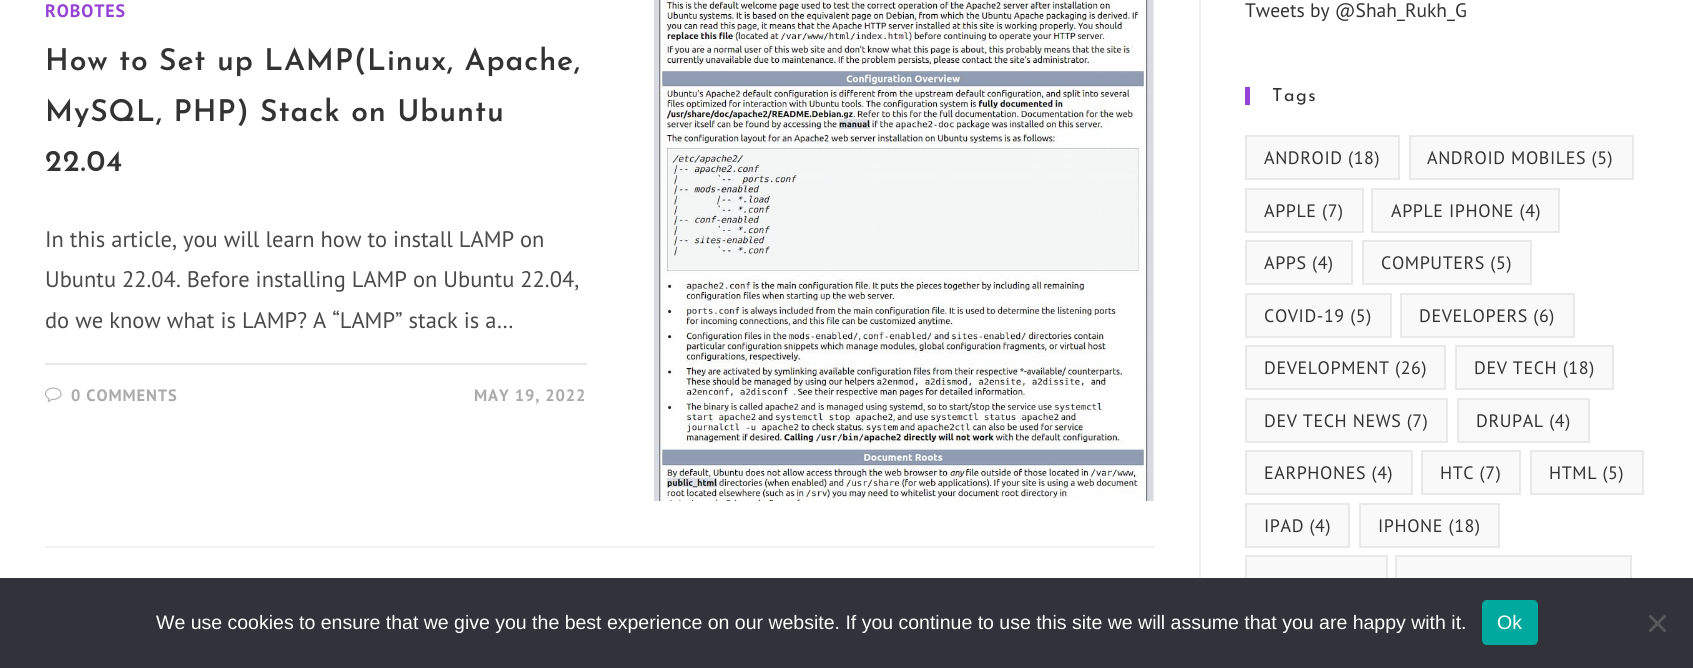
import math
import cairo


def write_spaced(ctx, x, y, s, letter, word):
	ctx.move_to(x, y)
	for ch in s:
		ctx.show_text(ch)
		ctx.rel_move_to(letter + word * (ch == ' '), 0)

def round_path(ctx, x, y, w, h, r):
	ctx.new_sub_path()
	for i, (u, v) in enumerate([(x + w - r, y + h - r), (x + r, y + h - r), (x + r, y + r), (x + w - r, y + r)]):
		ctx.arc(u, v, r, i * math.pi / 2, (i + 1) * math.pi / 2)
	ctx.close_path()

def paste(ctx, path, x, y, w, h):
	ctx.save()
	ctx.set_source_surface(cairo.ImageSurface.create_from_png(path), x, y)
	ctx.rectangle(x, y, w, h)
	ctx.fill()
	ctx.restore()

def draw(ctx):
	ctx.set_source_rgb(1, 1, 1)
	ctx.paint()
	ctx.set_source_rgb(0.945, 0.945, 0.945)
	ctx.rectangle(1199, 0, 2, 578)
	ctx.fill()
	ctx.rectangle(45, 546, 1109, 2)
	ctx.fill()
	ctx.select_font_face('PT Sans', cairo.FONT_SLANT_NORMAL, cairo.FONT_WEIGHT_BOLD)
	ctx.set_font_size(18)
	ctx.set_source_rgb(0.584, 0.263, 0.835)
	write_spaced(ctx, 45, 17, 'ROBOTES', 0.9, 0)
	ctx.select_font_face('Josefin Sans SemiBold')
	ctx.set_font_size(30)
	ctx.set_source_rgb(0.2, 0.2, 0.2)
	for x, y, s in [
		(45, 70, 'How to Set up LAMP(Linux, Apache,'),
		(45, 121, 'MySQL, PHP) Stack on Ubuntu'),
		(45, 171, '22.04'),
	]:
		write_spaced(ctx, x, y, s, 0.9, 0)
	ctx.select_font_face('PT Sans')
	ctx.set_font_size(22.5)
	ctx.set_source_rgb(0.29, 0.29, 0.29)
	for x, y, s in [
		(45, 247, 'In this article, you will learn how to install LAMP on'),
		(45, 287, 'Ubuntu 22.04. Before installing LAMP on Ubuntu 22.04,'),
		(45, 328, 'do we know what is LAMP? A “LAMP” stack is a…'),
	]:
		ctx.move_to(x, y)
		ctx.show_text(s)
	ctx.set_source_rgb(0.914, 0.914, 0.914)
	ctx.rectangle(45, 363, 542, 2)
	ctx.fill()
	paste(ctx, 'media/1.png', 45, 387, 17, 15)
	ctx.select_font_face('PT Sans', cairo.FONT_SLANT_NORMAL, cairo.FONT_WEIGHT_BOLD)
	ctx.set_font_size(16.5)
	ctx.set_source_rgb(0.671, 0.671, 0.671)
	write_spaced(ctx, 71, 401, '0 COMMENTS', 0.9, 0)
	write_spaced(ctx, 474, 401, 'MAY 19, 2022', 0.9, 0)
	paste(ctx, 'media/2.png', 654, 0, 500, 501)
	ctx.select_font_face('PT Sans')
	ctx.set_font_size(19.5)
	ctx.set_source_rgb(0.2, 0.2, 0.2)
	ctx.move_to(1245, 17)
	ctx.show_text('Tweets by @Shah_Rukh_G')
	ctx.set_source_rgb(0.584, 0.263, 0.835)
	ctx.rectangle(1245, 87, 5, 18)
	ctx.fill()
	ctx.select_font_face('Josefin Sans')
	ctx.set_font_size(18)
	ctx.set_source_rgb(0.2, 0.2, 0.2)
	write_spaced(ctx, 1272, 101, 'Tags', 1.5, 0)
	ctx.set_source_rgb(0.973, 0.973, 0.973)
	ctx.rectangle(1246, 136, 153, 43)
	ctx.fill_preserve()
	ctx.set_source_rgb(0.914, 0.914, 0.914)
	ctx.stroke()
	ctx.select_font_face('PT Sans')
	ctx.set_source_rgb(0.2, 0.2, 0.2)
	write_spaced(ctx, 1264, 164, 'ANDROID (18)', 0.6, 0)
	ctx.set_source_rgb(0.973, 0.973, 0.973)
	ctx.rectangle(1410, 136, 223, 43)
	ctx.fill_preserve()
	ctx.set_source_rgb(0.914, 0.914, 0.914)
	ctx.stroke()
	ctx.set_source_rgb(0.2, 0.2, 0.2)
	write_spaced(ctx, 1427, 164, 'ANDROID MOBILES (5)', 0.6, 0)
	ctx.set_source_rgb(0.973, 0.973, 0.973)
	ctx.rectangle(1246, 189, 117, 43)
	ctx.fill_preserve()
	ctx.set_source_rgb(0.914, 0.914, 0.914)
	ctx.stroke()
	ctx.set_source_rgb(0.2, 0.2, 0.2)
	write_spaced(ctx, 1264, 217, 'APPLE (7)', 0.6, 0)
	ctx.set_source_rgb(0.973, 0.973, 0.973)
	ctx.rectangle(1372, 189, 187, 43)
	ctx.fill_preserve()
	ctx.set_source_rgb(0.914, 0.914, 0.914)
	ctx.stroke()
	ctx.set_source_rgb(0.2, 0.2, 0.2)
	write_spaced(ctx, 1391, 217, 'APPLE IPHONE (4)', 0.6, 0)
	ctx.set_source_rgb(0.973, 0.973, 0.973)
	ctx.rectangle(1246, 241, 106, 43)
	ctx.fill_preserve()
	ctx.set_source_rgb(0.914, 0.914, 0.914)
	ctx.stroke()
	ctx.set_source_rgb(0.2, 0.2, 0.2)
	write_spaced(ctx, 1264, 269, 'APPS (4)', 0.6, 0)
	ctx.set_source_rgb(0.973, 0.973, 0.973)
	ctx.rectangle(1363, 241, 168, 43)
	ctx.fill_preserve()
	ctx.set_source_rgb(0.914, 0.914, 0.914)
	ctx.stroke()
	ctx.set_source_rgb(0.2, 0.2, 0.2)
	write_spaced(ctx, 1381, 269, 'COMPUTERS (5)', 0.6, 0)
	ctx.set_source_rgb(0.973, 0.973, 0.973)
	ctx.rectangle(1246, 294, 145, 43)
	ctx.fill_preserve()
	ctx.set_source_rgb(0.914, 0.914, 0.914)
	ctx.stroke()
	ctx.set_source_rgb(0.2, 0.2, 0.2)
	write_spaced(ctx, 1264, 322, 'COVID-19 (5)', 0.6, 0)
	ctx.set_source_rgb(0.973, 0.973, 0.973)
	ctx.rectangle(1401, 294, 173, 43)
	ctx.fill_preserve()
	ctx.set_source_rgb(0.914, 0.914, 0.914)
	ctx.stroke()
	ctx.set_source_rgb(0.2, 0.2, 0.2)
	write_spaced(ctx, 1419, 322, 'DEVELOPERS (6)', 0.6, 0)
	ctx.set_source_rgb(0.973, 0.973, 0.973)
	ctx.rectangle(1246, 346, 199, 43)
	ctx.fill_preserve()
	ctx.set_source_rgb(0.914, 0.914, 0.914)
	ctx.stroke()
	ctx.set_source_rgb(0.2, 0.2, 0.2)
	write_spaced(ctx, 1264, 374, 'DEVELOPMENT (26)', 0.6, 0)
	ctx.set_source_rgb(0.973, 0.973, 0.973)
	ctx.rectangle(1456, 346, 157, 43)
	ctx.fill_preserve()
	ctx.set_source_rgb(0.914, 0.914, 0.914)
	ctx.stroke()
	ctx.set_source_rgb(0.2, 0.2, 0.2)
	write_spaced(ctx, 1474, 374, 'DEV TECH (18)', 0.6, 0)
	ctx.set_source_rgb(0.973, 0.973, 0.973)
	ctx.rectangle(1246, 399, 201, 43)
	ctx.fill_preserve()
	ctx.set_source_rgb(0.914, 0.914, 0.914)
	ctx.stroke()
	ctx.set_source_rgb(0.2, 0.2, 0.2)
	write_spaced(ctx, 1264, 427, 'DEV TECH NEWS (7)', 0.6, 0)
	ctx.set_source_rgb(0.973, 0.973, 0.973)
	ctx.rectangle(1458, 399, 131, 43)
	ctx.fill_preserve()
	ctx.set_source_rgb(0.914, 0.914, 0.914)
	ctx.stroke()
	ctx.set_source_rgb(0.2, 0.2, 0.2)
	write_spaced(ctx, 1476, 427, 'DRUPAL (4)', 0.6, 0)
	ctx.set_source_rgb(0.973, 0.973, 0.973)
	ctx.rectangle(1246, 451, 166, 43)
	ctx.fill_preserve()
	ctx.set_source_rgb(0.914, 0.914, 0.914)
	ctx.stroke()
	ctx.set_source_rgb(0.2, 0.2, 0.2)
	write_spaced(ctx, 1264, 479, 'EARPHONES (4)', 0.6, 0)
	ctx.set_source_rgb(0.973, 0.973, 0.973)
	ctx.rectangle(1422, 451, 98, 43)
	ctx.fill_preserve()
	ctx.set_source_rgb(0.914, 0.914, 0.914)
	ctx.stroke()
	ctx.set_source_rgb(0.2, 0.2, 0.2)
	write_spaced(ctx, 1440, 479, 'HTC (7)', 0.6, 0)
	ctx.set_source_rgb(0.973, 0.973, 0.973)
	ctx.rectangle(1531, 451, 112, 43)
	ctx.fill_preserve()
	ctx.set_source_rgb(0.914, 0.914, 0.914)
	ctx.stroke()
	ctx.set_source_rgb(0.2, 0.2, 0.2)
	write_spaced(ctx, 1549, 479, 'HTML (5)', 0.6, 0)
	ctx.set_source_rgb(0.973, 0.973, 0.973)
	ctx.rectangle(1246, 504, 103, 43)
	ctx.fill_preserve()
	ctx.set_source_rgb(0.914, 0.914, 0.914)
	ctx.stroke()
	ctx.set_source_rgb(0.2, 0.2, 0.2)
	write_spaced(ctx, 1264, 532, 'IPAD (4)', 0.6, 0)
	ctx.set_source_rgb(0.973, 0.973, 0.973)
	ctx.rectangle(1360, 504, 139, 43)
	ctx.fill_preserve()
	ctx.set_source_rgb(0.914, 0.914, 0.914)
	ctx.stroke()
	ctx.set_source_rgb(0.2, 0.2, 0.2)
	write_spaced(ctx, 1378, 532, 'IPHONE (18)', 0.6, 0)
	ctx.set_source_rgb(0.973, 0.973, 0.973)
	ctx.rectangle(1247, 557, 139, 21)
	ctx.fill()
	ctx.rectangle(1246, 556, 141, 43)
	ctx.set_source_rgb(0.914, 0.914, 0.914)
	ctx.stroke()
	ctx.set_source_rgb(0.973, 0.973, 0.973)
	ctx.rectangle(1397, 557, 233, 21)
	ctx.fill()
	ctx.rectangle(1396, 556, 235, 43)
	ctx.set_source_rgb(0.914, 0.914, 0.914)
	ctx.stroke()
	ctx.set_source_rgb(0.196, 0.196, 0.227)
	ctx.rectangle(0, 578, 1693, 90)
	ctx.fill()
	ctx.select_font_face('Liberation Sans')
	ctx.set_font_size(19.5)
	ctx.set_source_rgb(1, 1, 1)
	ctx.move_to(156, 629)
	ctx.show_text('We use cookies to ensure that we give you the best experience on our website. If you continue to use this site we will assume that you are happy with it.')
	ctx.set_source_rgb(0, 0.663, 0.616)
	round_path(ctx, 1482, 600, 56, 45, 5)
	ctx.fill()
	ctx.set_source_rgb(1, 1, 1)
	ctx.move_to(1497, 629)
	ctx.show_text('Ok')
	ctx.set_source_rgb(0.349, 0.349, 0.365)
	ctx.new_path()
	ctx.move_to(1664.5, 614.5)
	ctx.line_to(1666.5, 616.5)
	ctx.line_to(1650.5, 632.5)
	ctx.line_to(1648.5, 630.5)
	ctx.close_path()
	ctx.fill()
	ctx.new_path()
	ctx.move_to(1648.5, 616.5)
	ctx.line_to(1650.5, 614.5)
	ctx.line_to(1666.5, 630.5)
	ctx.line_to(1664.5, 632.5)
	ctx.close_path()
	ctx.fill()


surface = cairo.ImageSurface(cairo.FORMAT_RGB24, 1693, 668)
ctx = cairo.Context(surface)
options = cairo.FontOptions()
options.set_hint_metrics(cairo.HINT_METRICS_OFF)
options.set_hint_style(cairo.HINT_STYLE_NONE)
ctx.set_font_options(options)
ctx.set_miter_limit(4)
draw(ctx)
surface.write_to_png('image.png')
